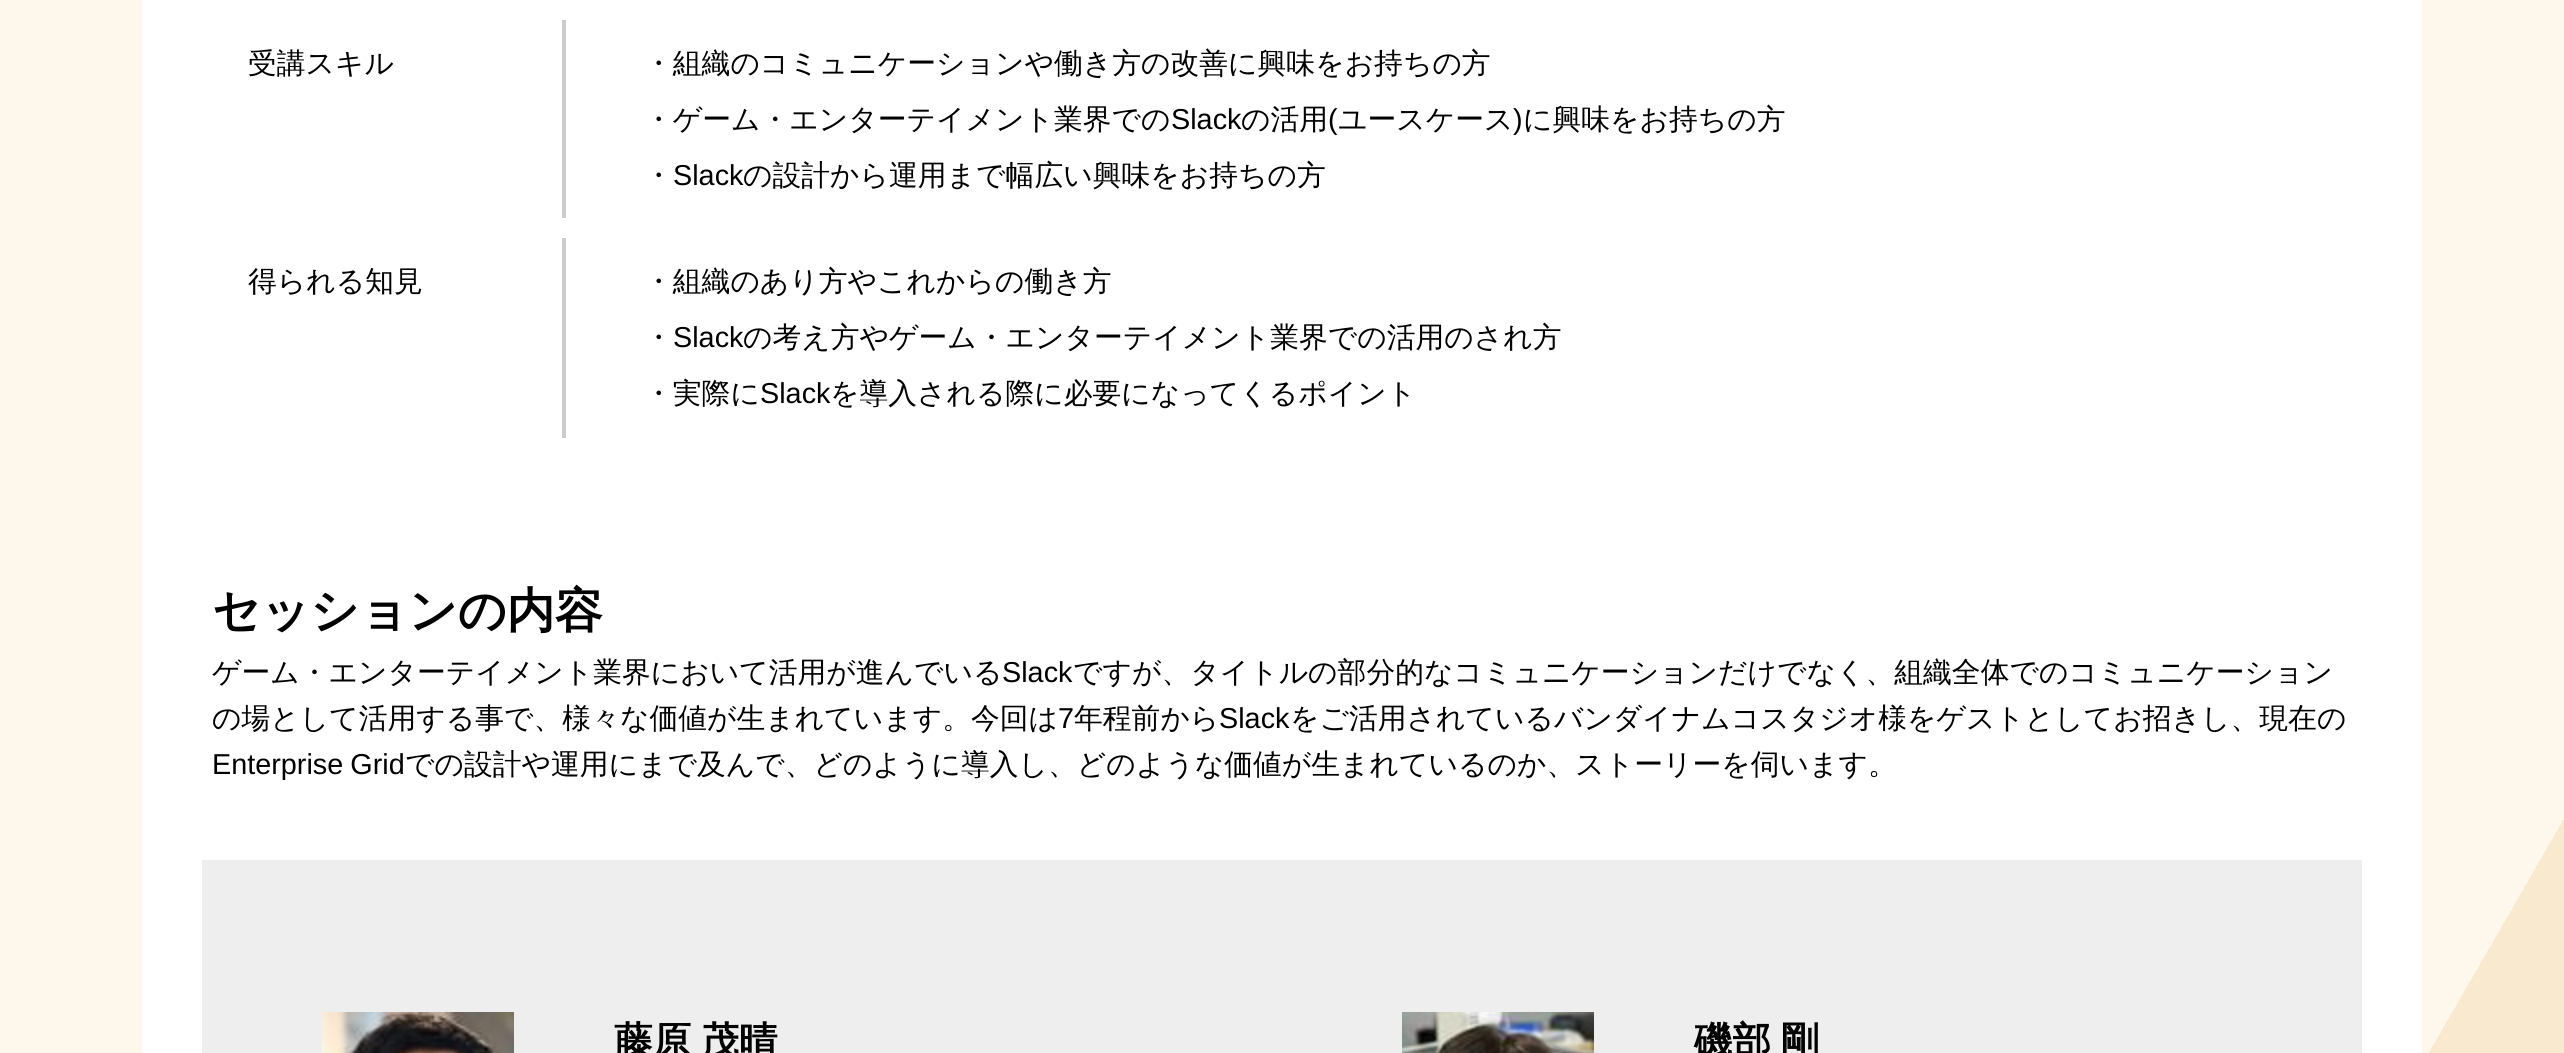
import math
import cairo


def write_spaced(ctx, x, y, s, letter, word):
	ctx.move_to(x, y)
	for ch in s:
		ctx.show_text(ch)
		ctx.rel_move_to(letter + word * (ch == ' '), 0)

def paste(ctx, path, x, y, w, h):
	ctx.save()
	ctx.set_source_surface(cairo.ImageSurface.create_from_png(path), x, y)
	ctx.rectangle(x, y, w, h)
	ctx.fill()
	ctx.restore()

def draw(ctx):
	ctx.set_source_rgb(1, 1, 1)
	ctx.paint()
	gradient = cairo.LinearGradient(-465, -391, 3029, 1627)
	gradient.add_color_stop_rgba(0.1, 1, 0.996, 0.984, 1)
	gradient.add_color_stop_rgba(0.1, 0.992, 0.969, 0.925, 1)
	gradient.add_color_stop_rgba(0.8, 0.992, 0.969, 0.925, 1)
	gradient.add_color_stop_rgba(0.8, 0.976, 0.914, 0.812, 1)
	gradient.add_color_stop_rgba(0.9, 0.976, 0.914, 0.812, 1)
	gradient.add_color_stop_rgba(0.9, 0.965, 0.878, 0.733, 1)
	gradient.add_color_stop_rgba(1, 0.965, 0.878, 0.733, 1)
	ctx.set_source(gradient)
	ctx.rectangle(0, 0, 2564, 1053)
	ctx.fill()
	ctx.set_source_rgb(1, 1, 1)
	ctx.rectangle(142, 0, 2280, 1053)
	ctx.fill()
	ctx.select_font_face('WenQuanYi Zen Hei Medium')
	ctx.set_font_size(28.8)
	ctx.set_source_rgb(0, 0, 0)
	ctx.move_to(248, 73)
	ctx.show_text('受講スキル')
	ctx.set_source_rgb(0.8, 0.8, 0.8)
	ctx.rectangle(562, 20, 4, 198)
	ctx.fill()
	ctx.set_source_rgb(0, 0, 0)
	ctx.move_to(644, 73)
	ctx.show_text('・組織のコミュニケーションや働き方の改善に興味をお持ちの方')
	ctx.move_to(644, 129)
	ctx.show_text('・ゲーム・エンターテイメント業界での')
	ctx.select_font_face('Liberation Sans')
	ctx.move_to(1171, 129)
	ctx.show_text('Slack')
	ctx.select_font_face('WenQuanYi Zen Hei Medium')
	ctx.move_to(1241, 129)
	ctx.show_text('の活用')
	ctx.select_font_face('Liberation Sans')
	ctx.move_to(1328, 129)
	ctx.show_text('(')
	ctx.select_font_face('WenQuanYi Zen Hei Medium')
	ctx.move_to(1338, 129)
	ctx.show_text('ユースケース')
	ctx.select_font_face('Liberation Sans')
	ctx.move_to(1513, 129)
	ctx.show_text(')')
	ctx.select_font_face('WenQuanYi Zen Hei Medium')
	ctx.move_to(1523, 129)
	ctx.show_text('に興味をお持ちの方')
	ctx.move_to(644, 185)
	ctx.show_text('・')
	ctx.select_font_face('Liberation Sans')
	ctx.move_to(673, 185)
	ctx.show_text('Slack')
	ctx.select_font_face('WenQuanYi Zen Hei Medium')
	ctx.move_to(743, 185)
	ctx.show_text('の設計から運用まで幅広い興味をお持ちの方')
	ctx.move_to(248, 291)
	ctx.show_text('得られる知見')
	ctx.set_source_rgb(0.8, 0.8, 0.8)
	ctx.rectangle(562, 238, 4, 200)
	ctx.fill()
	ctx.set_source_rgb(0, 0, 0)
	ctx.move_to(644, 291)
	ctx.show_text('・組織のあり方やこれからの働き方')
	ctx.move_to(644, 347)
	ctx.show_text('・')
	ctx.select_font_face('Liberation Sans')
	ctx.move_to(673, 347)
	ctx.show_text('Slack')
	ctx.select_font_face('WenQuanYi Zen Hei Medium')
	ctx.move_to(743, 347)
	ctx.show_text('の考え方やゲーム・エンターテイメント業界での活用のされ方')
	ctx.move_to(644, 403)
	ctx.show_text('・実際に')
	ctx.select_font_face('Liberation Sans')
	ctx.move_to(760, 403)
	ctx.show_text('Slack')
	ctx.select_font_face('WenQuanYi Zen Hei Medium')
	ctx.move_to(830, 403)
	ctx.show_text('を導入される際に必要になってくるポイント')
	ctx.select_font_face('WenQuanYi Zen Hei', cairo.FONT_SLANT_NORMAL, cairo.FONT_WEIGHT_BOLD)
	ctx.set_font_size(48)
	ctx.move_to(212, 627)
	ctx.show_text('セッションの内容')
	ctx.select_font_face('WenQuanYi Zen Hei Medium')
	ctx.set_font_size(28.8)
	ctx.move_to(212, 682)
	ctx.show_text('ゲーム・エンターテイメント業界において活用が進んでいる')
	ctx.select_font_face('Liberation Sans')
	ctx.move_to(1002, 682)
	ctx.show_text('Slack')
	ctx.select_font_face('WenQuanYi Zen Hei Medium')
	ctx.move_to(1073, 682)
	ctx.show_text('ですが、タイトルの部分的なコミュニケーションだけでなく、組織全体でのコミュニケーション')
	ctx.move_to(212, 728)
	ctx.show_text('の場として活用する事で、様々な価値が生まれています。今回は')
	ctx.select_font_face('Liberation Sans')
	ctx.move_to(1058, 728)
	ctx.show_text('7')
	ctx.select_font_face('WenQuanYi Zen Hei Medium')
	ctx.move_to(1074, 728)
	ctx.show_text('年程前から')
	ctx.select_font_face('Liberation Sans')
	ctx.move_to(1219, 728)
	ctx.show_text('Slack')
	ctx.select_font_face('WenQuanYi Zen Hei Medium')
	ctx.move_to(1290, 728)
	ctx.show_text('をご活用されているバンダイナムコスタジオ様をゲストとしてお招きし、現在の')
	ctx.select_font_face('Liberation Sans')
	write_spaced(ctx, 212, 774, 'Enterprise Grid', 0, -1)
	ctx.select_font_face('WenQuanYi Zen Hei Medium')
	ctx.move_to(405, 774)
	ctx.show_text('での設計や運用にまで及んで、どのように導入し、どのような価値が生まれているのか、ストーリーを伺います。')
	ctx.set_source_rgb(0.933, 0.933, 0.937)
	ctx.rectangle(202, 860, 2160, 193)
	ctx.fill()
	paste(ctx, 'media/1.png', 322, 1012, 192, 41)
	ctx.select_font_face('WenQuanYi Zen Hei', cairo.FONT_SLANT_NORMAL, cairo.FONT_WEIGHT_BOLD)
	ctx.set_font_size(38.5)
	ctx.set_source_rgb(0, 0, 0)
	write_spaced(ctx, 614, 1054, '藤原 茂晴', 0, -2)
	paste(ctx, 'media/2.png', 1402, 1012, 192, 41)
	write_spaced(ctx, 1694, 1054, '磯部 剛', 0, -2)


surface = cairo.ImageSurface(cairo.FORMAT_RGB24, 2564, 1053)
ctx = cairo.Context(surface)
options = cairo.FontOptions()
options.set_hint_metrics(cairo.HINT_METRICS_OFF)
options.set_hint_style(cairo.HINT_STYLE_NONE)
ctx.set_font_options(options)
ctx.set_miter_limit(4)
draw(ctx)
surface.write_to_png('image.png')
